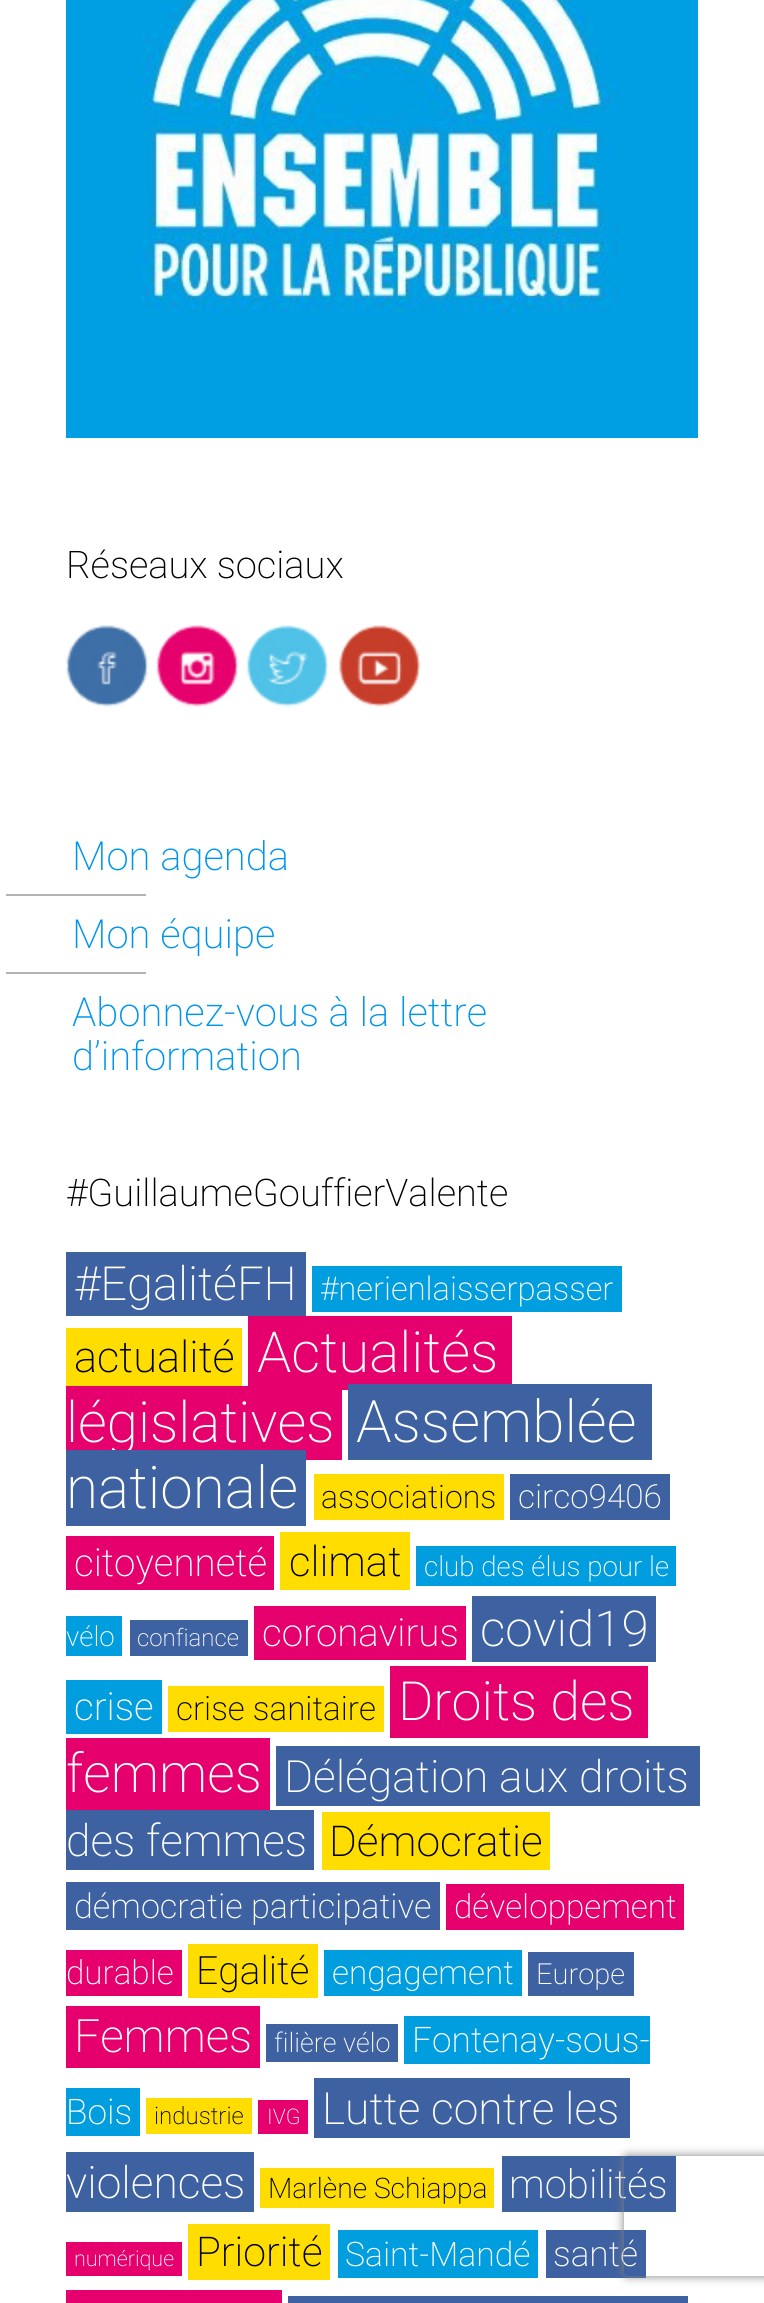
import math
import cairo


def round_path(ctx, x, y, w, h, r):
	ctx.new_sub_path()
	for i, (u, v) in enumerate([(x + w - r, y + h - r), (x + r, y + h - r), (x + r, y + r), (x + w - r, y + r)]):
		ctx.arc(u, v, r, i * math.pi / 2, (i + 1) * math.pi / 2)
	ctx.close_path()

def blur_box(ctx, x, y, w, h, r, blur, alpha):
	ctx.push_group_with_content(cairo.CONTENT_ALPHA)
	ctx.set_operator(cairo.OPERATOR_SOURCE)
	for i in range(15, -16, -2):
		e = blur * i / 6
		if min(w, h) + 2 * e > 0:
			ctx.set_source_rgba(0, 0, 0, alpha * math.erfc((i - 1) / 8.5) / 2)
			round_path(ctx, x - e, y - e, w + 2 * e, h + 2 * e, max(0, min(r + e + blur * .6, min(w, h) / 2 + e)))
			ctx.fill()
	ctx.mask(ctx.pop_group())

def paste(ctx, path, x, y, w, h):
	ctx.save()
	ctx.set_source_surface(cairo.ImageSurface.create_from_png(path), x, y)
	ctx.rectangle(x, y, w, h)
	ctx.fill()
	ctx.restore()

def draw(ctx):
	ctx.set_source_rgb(1, 1, 1)
	ctx.paint()
	paste(ctx, 'media/1.png', 66, 0, 632, 438)
	ctx.select_font_face('Roboto ExtraLight')
	ctx.set_font_size(38)
	ctx.set_source_rgb(0, 0, 0)
	ctx.move_to(66, 578)
	ctx.show_text('Réseaux sociaux')
	paste(ctx, 'media/2.png', 66, 625, 83, 82)
	paste(ctx, 'media/3.png', 156, 625, 83, 82)
	paste(ctx, 'media/4.png', 246, 625, 83, 82)
	paste(ctx, 'media/5.png', 338, 625, 83, 82)
	ctx.set_font_size(40)
	ctx.set_source_rgb(0, 0.584, 0.922)
	ctx.move_to(72, 870)
	ctx.show_text('Mon agenda')
	ctx.set_source_rgb(0.702, 0.702, 0.702)
	ctx.rectangle(6, 894, 140, 2)
	ctx.fill()
	ctx.set_source_rgb(0, 0.584, 0.922)
	ctx.move_to(72, 948)
	ctx.show_text('Mon équipe')
	ctx.set_source_rgb(0.702, 0.702, 0.702)
	ctx.rectangle(6, 972, 140, 2)
	ctx.fill()
	ctx.set_source_rgb(0, 0.584, 0.922)
	ctx.move_to(72, 1026)
	ctx.show_text('Abonnez-vous à la lettre')
	ctx.move_to(72, 1070)
	ctx.show_text('d’information')
	ctx.set_font_size(38)
	ctx.set_source_rgb(0, 0, 0)
	ctx.move_to(66, 1206)
	ctx.show_text('#GuillaumeGouffierValente')
	ctx.set_source_rgb(0.243, 0.38, 0.631)
	ctx.rectangle(66, 1252, 240, 64)
	ctx.fill()
	ctx.set_font_size(47)
	ctx.set_source_rgb(1, 1, 1)
	ctx.move_to(74, 1300)
	ctx.show_text('#EgalitéFH')
	ctx.set_source_rgb(0, 0.62, 0.875)
	ctx.rectangle(312, 1266, 310, 46)
	ctx.fill()
	ctx.set_font_size(32.75)
	ctx.set_source_rgb(1, 1, 1)
	ctx.move_to(320, 1300)
	ctx.show_text('#nerienlaisserpasser')
	ctx.set_source_rgb(1, 0.867, 0)
	ctx.rectangle(66, 1328, 176, 58)
	ctx.fill()
	ctx.set_font_size(43.5)
	ctx.set_source_rgb(0, 0, 0)
	ctx.move_to(74, 1372)
	ctx.show_text('actualité')
	ctx.set_source_rgb(0.902, 0, 0.427)
	ctx.rectangle(248, 1316, 250, 74)
	ctx.fill()
	ctx.set_font_size(56.5)
	ctx.set_source_rgb(1, 1, 1)
	ctx.move_to(257, 1372)
	ctx.show_text('Actualités')
	ctx.set_source_rgb(0.902, 0, 0.427)
	ctx.rectangle(498, 1316, 14, 68)
	ctx.fill()
	ctx.rectangle(66, 1386, 276, 74)
	ctx.fill()
	ctx.set_source_rgb(1, 1, 1)
	ctx.move_to(66, 1442)
	ctx.show_text('législatives')
	ctx.set_source_rgb(0.243, 0.38, 0.631)
	ctx.rectangle(348, 1384, 304, 76)
	ctx.fill()
	ctx.set_font_size(58.5)
	ctx.set_source_rgb(1, 1, 1)
	ctx.move_to(356, 1442)
	ctx.show_text('Assemblée')
	ctx.set_source_rgb(0.243, 0.38, 0.631)
	ctx.rectangle(66, 1450, 240, 76)
	ctx.fill()
	ctx.set_source_rgb(1, 1, 1)
	ctx.move_to(66, 1508)
	ctx.show_text('nationale')
	ctx.set_source_rgb(1, 0.867, 0)
	ctx.rectangle(314, 1474, 190, 46)
	ctx.fill()
	ctx.set_font_size(32)
	ctx.set_source_rgb(0, 0, 0)
	ctx.move_to(321, 1508)
	ctx.show_text('associations')
	ctx.set_source_rgb(0.243, 0.38, 0.631)
	ctx.rectangle(510, 1474, 160, 46)
	ctx.fill()
	ctx.set_font_size(33.25)
	ctx.set_source_rgb(1, 1, 1)
	ctx.move_to(518, 1508)
	ctx.show_text('circo9406')
	ctx.set_source_rgb(0.902, 0, 0.427)
	ctx.rectangle(66, 1536, 208, 54)
	ctx.fill()
	ctx.set_font_size(38.5)
	ctx.set_source_rgb(1, 1, 1)
	ctx.move_to(74, 1576)
	ctx.show_text('citoyenneté')
	ctx.set_source_rgb(1, 0.867, 0)
	ctx.rectangle(280, 1532, 130, 58)
	ctx.fill()
	ctx.set_font_size(42)
	ctx.set_source_rgb(0, 0, 0)
	ctx.move_to(289, 1576)
	ctx.show_text('climat')
	ctx.set_source_rgb(0, 0.62, 0.875)
	ctx.rectangle(416, 1546, 260, 40)
	ctx.fill()
	ctx.set_font_size(27.75)
	ctx.set_source_rgb(1, 1, 1)
	ctx.move_to(424, 1576)
	ctx.show_text('club des élus pour le')
	ctx.set_source_rgb(0, 0.62, 0.875)
	ctx.rectangle(66, 1616, 56, 40)
	ctx.fill()
	ctx.set_source_rgb(1, 1, 1)
	ctx.move_to(66, 1646)
	ctx.show_text('vélo')
	ctx.set_source_rgb(0.243, 0.38, 0.631)
	ctx.rectangle(130, 1620, 118, 36)
	ctx.fill()
	ctx.set_font_size(24)
	ctx.set_source_rgb(1, 1, 1)
	ctx.move_to(137, 1646)
	ctx.show_text('confiance')
	ctx.set_source_rgb(0.902, 0, 0.427)
	ctx.rectangle(254, 1606, 212, 54)
	ctx.fill()
	ctx.set_font_size(38.5)
	ctx.set_source_rgb(1, 1, 1)
	ctx.move_to(262, 1646)
	ctx.show_text('coronavirus')
	ctx.set_source_rgb(0.243, 0.38, 0.631)
	ctx.rectangle(472, 1596, 184, 66)
	ctx.fill()
	ctx.set_font_size(49.5)
	ctx.set_source_rgb(1, 1, 1)
	ctx.move_to(480, 1646)
	ctx.show_text('covid19')
	ctx.set_source_rgb(0, 0.62, 0.875)
	ctx.rectangle(66, 1680, 96, 54)
	ctx.fill()
	ctx.set_font_size(38.5)
	ctx.set_source_rgb(1, 1, 1)
	ctx.move_to(74, 1720)
	ctx.show_text('crise')
	ctx.set_source_rgb(1, 0.867, 0)
	ctx.rectangle(168, 1686, 216, 46)
	ctx.fill()
	ctx.set_font_size(33.25)
	ctx.set_source_rgb(0, 0, 0)
	ctx.move_to(176, 1720)
	ctx.show_text('crise sanitaire')
	ctx.set_source_rgb(0.902, 0, 0.427)
	ctx.rectangle(390, 1666, 258, 72)
	ctx.fill()
	ctx.set_font_size(54)
	ctx.set_source_rgb(1, 1, 1)
	ctx.move_to(398, 1720)
	ctx.show_text('Droits des')
	ctx.set_source_rgb(0.902, 0, 0.427)
	ctx.rectangle(66, 1738, 204, 72)
	ctx.fill()
	ctx.set_source_rgb(1, 1, 1)
	ctx.move_to(66, 1792)
	ctx.show_text('femmes')
	ctx.set_source_rgb(0.243, 0.38, 0.631)
	ctx.rectangle(276, 1746, 424, 60)
	ctx.fill()
	ctx.set_font_size(44.4)
	ctx.set_source_rgb(1, 1, 1)
	ctx.move_to(284, 1792)
	ctx.show_text('Délégation aux droits')
	ctx.set_source_rgb(0.243, 0.38, 0.631)
	ctx.rectangle(66, 1810, 248, 60)
	ctx.fill()
	ctx.set_source_rgb(1, 1, 1)
	ctx.move_to(66, 1856)
	ctx.show_text('des femmes')
	ctx.set_source_rgb(1, 0.867, 0)
	ctx.rectangle(322, 1812, 228, 58)
	ctx.fill()
	ctx.set_font_size(42.5)
	ctx.set_source_rgb(0, 0, 0)
	ctx.move_to(329, 1856)
	ctx.show_text('Démocratie')
	ctx.set_source_rgb(0.243, 0.38, 0.631)
	ctx.rectangle(66, 1882, 374, 48)
	ctx.fill()
	ctx.set_font_size(34.25)
	ctx.set_source_rgb(1, 1, 1)
	ctx.move_to(74, 1918)
	ctx.show_text('démocratie participative')
	ctx.set_source_rgb(0.902, 0, 0.427)
	ctx.rectangle(446, 1884, 238, 46)
	ctx.fill()
	ctx.set_font_size(33.25)
	ctx.set_source_rgb(1, 1, 1)
	ctx.move_to(454, 1918)
	ctx.show_text('développement')
	ctx.set_source_rgb(0.902, 0, 0.427)
	ctx.rectangle(66, 1950, 116, 46)
	ctx.fill()
	ctx.set_source_rgb(1, 1, 1)
	ctx.move_to(66, 1984)
	ctx.show_text('durable')
	ctx.set_source_rgb(1, 0.867, 0)
	ctx.rectangle(188, 1944, 130, 54)
	ctx.fill()
	ctx.set_font_size(39)
	ctx.set_source_rgb(0, 0, 0)
	ctx.move_to(196, 1984)
	ctx.show_text('Egalité')
	ctx.set_source_rgb(0, 0.62, 0.875)
	ctx.rectangle(324, 1950, 198, 46)
	ctx.fill()
	ctx.set_font_size(33.25)
	ctx.set_source_rgb(1, 1, 1)
	ctx.move_to(332, 1984)
	ctx.show_text('engagement')
	ctx.set_source_rgb(0.243, 0.38, 0.631)
	ctx.rectangle(528, 1952, 106, 44)
	ctx.fill()
	ctx.set_font_size(29)
	ctx.set_source_rgb(1, 1, 1)
	ctx.move_to(536, 1984)
	ctx.show_text('Europe')
	ctx.set_source_rgb(0.902, 0, 0.427)
	ctx.rectangle(66, 2006, 194, 62)
	ctx.fill()
	ctx.set_font_size(46)
	ctx.set_source_rgb(1, 1, 1)
	ctx.move_to(74, 2052)
	ctx.show_text('Femmes')
	ctx.set_source_rgb(0.243, 0.38, 0.631)
	ctx.rectangle(266, 2024, 132, 38)
	ctx.fill()
	ctx.set_font_size(27)
	ctx.set_source_rgb(1, 1, 1)
	ctx.move_to(274, 2052)
	ctx.show_text('filière vélo')
	ctx.set_source_rgb(0, 0.62, 0.875)
	ctx.rectangle(404, 2016, 246, 48)
	ctx.fill()
	ctx.set_font_size(35.25)
	ctx.set_source_rgb(1, 1, 1)
	ctx.move_to(412, 2052)
	ctx.show_text('Fontenay-sous-')
	ctx.set_source_rgb(0, 0.62, 0.875)
	ctx.rectangle(66, 2088, 74, 48)
	ctx.fill()
	ctx.set_source_rgb(1, 1, 1)
	ctx.move_to(66, 2124)
	ctx.show_text('Bois')
	ctx.set_source_rgb(1, 0.867, 0)
	ctx.rectangle(146, 2098, 106, 36)
	ctx.fill()
	ctx.set_font_size(24)
	ctx.set_source_rgb(0, 0, 0)
	ctx.move_to(154, 2124)
	ctx.show_text('industrie')
	ctx.set_source_rgb(0.902, 0, 0.427)
	ctx.rectangle(258, 2100, 50, 34)
	ctx.fill()
	ctx.set_font_size(21.5)
	ctx.set_source_rgb(1, 1, 1)
	ctx.move_to(267, 2124)
	ctx.show_text('IVG')
	ctx.set_source_rgb(0.243, 0.38, 0.631)
	ctx.rectangle(314, 2078, 316, 60)
	ctx.fill()
	ctx.set_font_size(44.4)
	ctx.set_source_rgb(1, 1, 1)
	ctx.move_to(322, 2124)
	ctx.show_text('Lutte contre les')
	ctx.set_source_rgb(0.243, 0.38, 0.631)
	ctx.rectangle(66, 2152, 188, 60)
	ctx.fill()
	ctx.set_source_rgb(1, 1, 1)
	ctx.move_to(66, 2198)
	ctx.show_text('violences')
	ctx.set_source_rgb(1, 0.867, 0)
	ctx.rectangle(260, 2168, 234, 40)
	ctx.fill()
	ctx.set_font_size(28.25)
	ctx.set_source_rgb(0, 0, 0)
	ctx.move_to(268, 2198)
	ctx.show_text('Marlène Schiappa')
	ctx.set_source_rgb(0.243, 0.38, 0.631)
	ctx.rectangle(502, 2156, 174, 56)
	ctx.fill()
	ctx.set_font_size(40)
	ctx.set_source_rgb(1, 1, 1)
	ctx.move_to(509, 2198)
	ctx.show_text('mobilités')
	ctx.set_source_rgb(0.902, 0, 0.427)
	ctx.rectangle(66, 2242, 116, 34)
	ctx.fill()
	ctx.set_font_size(21.5)
	ctx.set_source_rgb(1, 1, 1)
	ctx.move_to(74, 2266)
	ctx.show_text('numérique')
	ctx.set_source_rgb(1, 0.867, 0)
	ctx.rectangle(188, 2224, 142, 56)
	ctx.fill()
	ctx.set_font_size(41)
	ctx.set_source_rgb(0, 0, 0)
	ctx.move_to(196, 2266)
	ctx.show_text('Priorité')
	ctx.set_source_rgb(0, 0.62, 0.875)
	ctx.rectangle(338, 2230, 200, 48)
	ctx.fill()
	ctx.set_font_size(33.75)
	ctx.set_source_rgb(1, 1, 1)
	ctx.move_to(345, 2266)
	ctx.show_text('Saint-Mandé')
	ctx.set_source_rgb(0.243, 0.38, 0.631)
	ctx.rectangle(546, 2230, 100, 48)
	ctx.fill()
	ctx.set_font_size(35.25)
	ctx.set_source_rgb(1, 1, 1)
	ctx.move_to(553, 2266)
	ctx.show_text('santé')
	ctx.set_source_rgb(0.902, 0, 0.427)
	ctx.rectangle(66, 2290, 216, 13)
	ctx.fill()
	ctx.set_source_rgb(0.243, 0.38, 0.631)
	ctx.rectangle(288, 2296, 400, 7)
	ctx.fill()
	ctx.save()
	ctx.set_fill_rule(cairo.FILL_RULE_EVEN_ODD)
	ctx.new_path()
	ctx.move_to(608, 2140)
	ctx.line_to(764, 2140)
	ctx.line_to(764, 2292)
	ctx.line_to(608, 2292)
	ctx.close_path()
	ctx.move_to(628, 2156)
	ctx.line_to(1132, 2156)
	ctx.curve_to(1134, 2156, 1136, 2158, 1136, 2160)
	ctx.line_to(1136, 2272)
	ctx.curve_to(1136, 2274, 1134, 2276, 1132, 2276)
	ctx.line_to(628, 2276)
	ctx.curve_to(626, 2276, 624, 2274, 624, 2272)
	ctx.line_to(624, 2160)
	ctx.curve_to(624, 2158, 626, 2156, 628, 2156)
	ctx.close_path()
	ctx.clip()
	ctx.set_source_rgb(0.502, 0.502, 0.502)
	blur_box(ctx, 624, 2156, 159, 120, 4, 5, 1)
	ctx.restore()


surface = cairo.ImageSurface(cairo.FORMAT_RGB24, 764, 2303)
ctx = cairo.Context(surface)
options = cairo.FontOptions()
options.set_hint_metrics(cairo.HINT_METRICS_OFF)
options.set_hint_style(cairo.HINT_STYLE_NONE)
ctx.set_font_options(options)
ctx.set_miter_limit(4)
draw(ctx)
surface.write_to_png('image.png')
